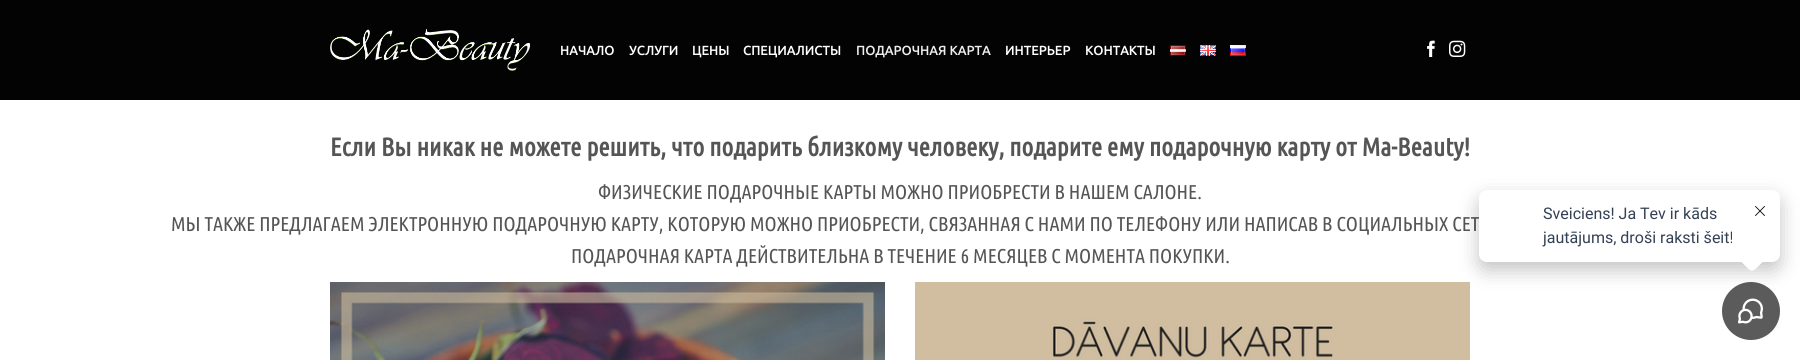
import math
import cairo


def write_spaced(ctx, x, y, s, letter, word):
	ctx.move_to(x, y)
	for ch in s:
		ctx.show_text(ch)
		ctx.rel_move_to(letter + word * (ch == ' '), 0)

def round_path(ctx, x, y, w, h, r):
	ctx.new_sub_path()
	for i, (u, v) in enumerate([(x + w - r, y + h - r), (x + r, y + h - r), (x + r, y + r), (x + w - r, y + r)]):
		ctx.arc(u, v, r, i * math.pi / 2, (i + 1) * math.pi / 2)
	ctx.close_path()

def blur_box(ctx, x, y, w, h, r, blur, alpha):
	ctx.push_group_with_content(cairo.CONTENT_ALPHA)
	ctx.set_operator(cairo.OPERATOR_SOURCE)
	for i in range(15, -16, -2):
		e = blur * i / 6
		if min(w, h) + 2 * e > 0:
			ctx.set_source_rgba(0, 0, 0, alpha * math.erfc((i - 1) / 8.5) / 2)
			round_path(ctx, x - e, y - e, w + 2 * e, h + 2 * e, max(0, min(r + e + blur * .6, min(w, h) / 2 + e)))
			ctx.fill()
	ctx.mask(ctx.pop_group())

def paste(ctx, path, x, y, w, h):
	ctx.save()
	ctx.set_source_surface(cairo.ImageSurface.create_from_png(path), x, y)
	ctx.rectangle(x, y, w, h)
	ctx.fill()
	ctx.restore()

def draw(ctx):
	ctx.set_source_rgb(1, 1, 1)
	ctx.paint()
	ctx.set_source_rgb(0.012, 0.012, 0.012)
	ctx.rectangle(0, 0, 1800, 100)
	ctx.fill()
	paste(ctx, 'media/1.png', 330, 29, 200, 42)
	ctx.select_font_face('Ubuntu', cairo.FONT_SLANT_NORMAL, cairo.FONT_WEIGHT_BOLD)
	ctx.set_font_size(12.75)
	ctx.set_source_rgb(1, 1, 1)
	for x, y, s in [
		(560, 55, 'НАЧАЛО'),
		(629, 55, 'УСЛУГИ'),
		(692, 55, 'ЦЕНЫ'),
		(743, 55, 'СПЕЦИАЛИСТЫ'),
	]:
		write_spaced(ctx, x, y, s, 0.25, 0)
	ctx.set_source_rgb(0.929, 0.929, 0.929)
	write_spaced(ctx, 856, 55, 'ПОДАРОЧНАЯ КАРТА', 0.25, 0)
	ctx.set_source_rgb(1, 1, 1)
	write_spaced(ctx, 1005, 55, 'ИНТЕРЬЕР', 0.25, 0)
	write_spaced(ctx, 1085, 55, 'КОНТАКТЫ', 0.25, 0)
	paste(ctx, 'media/2.png', 1170, 45, 16, 11)
	paste(ctx, 'media/3.png', 1200, 45, 16, 11)
	paste(ctx, 'media/4.png', 1230, 45, 16, 11)
	paste(ctx, 'media/5.png', 1427, 40, 8, 17)
	paste(ctx, 'media/6.png', 1449, 40, 17, 17)
	ctx.select_font_face('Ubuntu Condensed', cairo.FONT_SLANT_NORMAL, cairo.FONT_WEIGHT_BOLD)
	ctx.set_font_size(25.6)
	ctx.set_source_rgb(0.333, 0.333, 0.333)
	ctx.move_to(330, 156)
	ctx.show_text('Если Вы никак не можете решить, что подарить близкому человеку, подарите ему подарочную карту от Ma-Beauty!')
	ctx.select_font_face('Ubuntu Condensed')
	ctx.set_font_size(20)
	for x, y, s in [
		(598, 199, 'ФИЗИЧЕСКИЕ ПОДАРОЧНЫЕ КАРТЫ МОЖНО ПРИОБРЕСТИ В НАШЕМ САЛОНЕ.'),
		(171, 231, 'МЫ ТАКЖЕ ПРЕДЛАГАЕМ ЭЛЕКТРОННУЮ ПОДАРОЧНУЮ КАРТУ, КОТОРУЮ МОЖНО ПРИОБРЕСТИ, СВЯЗАННАЯ С НАМИ ПО ТЕЛЕФОНУ ИЛИ НАПИСАВ В СОЦИАЛЬНЫХ СЕТ'),
		(571, 263, 'ПОДАРОЧНАЯ КАРТА ДЕЙСТВИТЕЛЬНА В ТЕЧЕНИЕ 6 МЕСЯЦЕВ С МОМЕНТА ПОКУПКИ.'),
	]:
		ctx.move_to(x, y)
		ctx.show_text(s)
	paste(ctx, 'media/7.png', 330, 282, 555, 78)
	paste(ctx, 'media/8.png', 915, 282, 555, 78)
	ctx.set_source_rgb(0.357, 0.357, 0.357)
	ctx.arc(1751, 311, 29, 0, 2 * math.pi)
	ctx.fill()
	paste(ctx, 'media/10.png', 1738, 298, 25, 26)
	ctx.set_source_rgb(0, 0, 0)
	blur_box(ctx, 1479, 198, 301, 72, 8, 10, 0.24)
	ctx.set_source_rgb(1, 1, 1)
	round_path(ctx, 1479, 190, 301, 72, 8)
	ctx.fill()
	ctx.select_font_face('Roboto')
	ctx.set_font_size(16)
	ctx.set_source_rgb(0.204, 0.251, 0.329)
	ctx.move_to(1543, 219)
	ctx.show_text('Sveiciens! Ja Tev ir kāds')
	ctx.move_to(1543, 243)
	ctx.show_text('jautājums, droši raksti šeit!')
	ctx.set_source_rgb(1, 1, 1)
	ctx.new_path()
	ctx.move_to(1755, 246.5)
	ctx.line_to(1763.5, 255)
	ctx.curve_to(1765, 256.5, 1765, 259.5, 1763.5, 261)
	ctx.line_to(1755, 269.5)
	ctx.curve_to(1753.5, 271, 1750.5, 271, 1749, 269.5)
	ctx.line_to(1740.5, 261)
	ctx.curve_to(1739, 259.5, 1739, 256.5, 1740.5, 255)
	ctx.line_to(1749, 246.5)
	ctx.curve_to(1750.5, 245, 1753.5, 245, 1755, 246.5)
	ctx.close_path()
	ctx.fill()
	paste(ctx, 'media/9.png', 1755, 206, 10, 10)


surface = cairo.ImageSurface(cairo.FORMAT_RGB24, 1800, 360)
ctx = cairo.Context(surface)
options = cairo.FontOptions()
options.set_hint_metrics(cairo.HINT_METRICS_OFF)
options.set_hint_style(cairo.HINT_STYLE_NONE)
ctx.set_font_options(options)
ctx.set_miter_limit(4)
draw(ctx)
surface.write_to_png('image.png')
